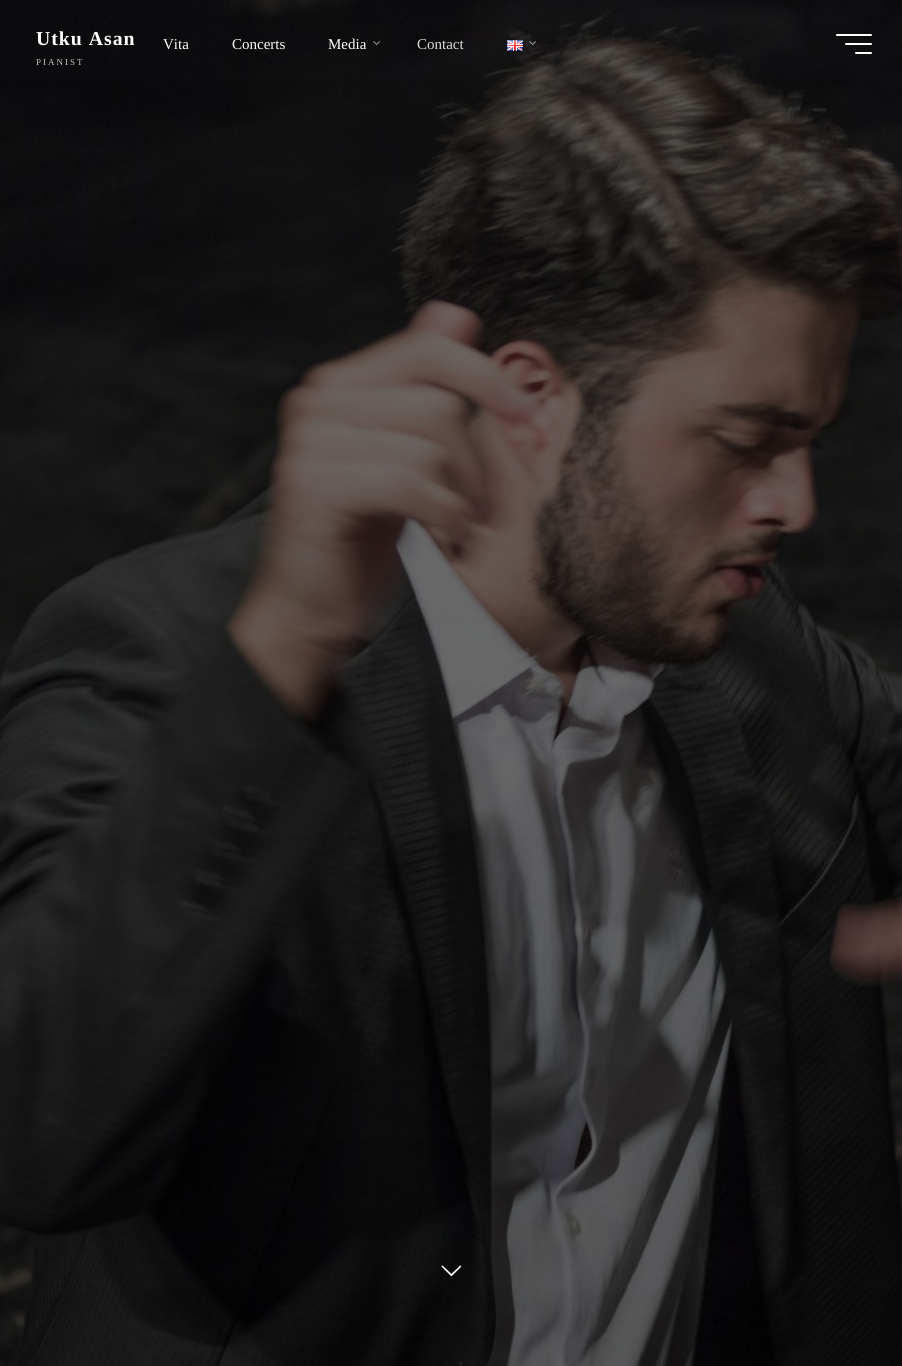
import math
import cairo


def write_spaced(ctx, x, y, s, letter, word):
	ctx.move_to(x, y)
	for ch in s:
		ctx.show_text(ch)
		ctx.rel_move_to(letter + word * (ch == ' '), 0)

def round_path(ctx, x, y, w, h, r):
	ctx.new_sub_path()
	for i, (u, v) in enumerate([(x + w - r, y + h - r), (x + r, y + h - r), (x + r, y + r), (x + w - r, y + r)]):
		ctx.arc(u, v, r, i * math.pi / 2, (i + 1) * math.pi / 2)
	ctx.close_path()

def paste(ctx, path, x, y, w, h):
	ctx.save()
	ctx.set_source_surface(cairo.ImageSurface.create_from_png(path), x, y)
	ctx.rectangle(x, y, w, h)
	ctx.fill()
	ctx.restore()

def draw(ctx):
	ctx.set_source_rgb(1, 1, 1)
	ctx.paint()
	paste(ctx, 'media/1.png', 0, 0, 902, 1366)
	gradient = cairo.LinearGradient(451, 0, 451, 1366)
	gradient.add_color_stop_rgba(0, 0.059, 0.059, 0.059, 0.6)
	gradient.add_color_stop_rgba(1, 0, 0, 0, 0.6)
	ctx.set_source(gradient)
	ctx.rectangle(0, 0, 902, 1366)
	ctx.fill()
	paste(ctx, 'media/2.png', 441, 1265, 21, 11)
	ctx.select_font_face('Liberation Serif', cairo.FONT_SLANT_NORMAL, cairo.FONT_WEIGHT_BOLD)
	ctx.set_font_size(19.75)
	ctx.set_source_rgb(1, 1, 1)
	write_spaced(ctx, 36, 45, 'Utku Asan', 1, 0)
	ctx.select_font_face('Liberation Serif')
	ctx.set_font_size(9)
	ctx.set_source_rgb(0.761, 0.761, 0.761)
	write_spaced(ctx, 36, 65, 'PIANIST', 2, 0)
	ctx.set_font_size(15)
	ctx.set_source_rgb(1, 1, 1)
	for x, y, s in [
		(163, 49, 'Vita'),
		(232, 49, 'Concerts'),
		(328, 49, 'Media'),
	]:
		ctx.move_to(x, y)
		ctx.show_text(s)
	paste(ctx, 'media/3.png', 373, 41, 7, 4)
	ctx.set_source_rgb(0.859, 0.859, 0.859)
	ctx.move_to(417, 49)
	ctx.show_text('Contact')
	paste(ctx, 'media/4.png', 507, 40, 16, 11)
	paste(ctx, 'media/5.png', 529, 41, 7, 4)
	ctx.set_source_rgb(1, 1, 1)
	round_path(ctx, 836, 34, 36, 2, 1)
	ctx.fill()
	round_path(ctx, 845, 43, 27, 2, 1)
	ctx.fill()
	round_path(ctx, 855, 52, 17, 2, 1)
	ctx.fill()


surface = cairo.ImageSurface(cairo.FORMAT_RGB24, 902, 1366)
ctx = cairo.Context(surface)
options = cairo.FontOptions()
options.set_hint_metrics(cairo.HINT_METRICS_OFF)
options.set_hint_style(cairo.HINT_STYLE_NONE)
ctx.set_font_options(options)
ctx.set_miter_limit(4)
draw(ctx)
surface.write_to_png('image.png')
